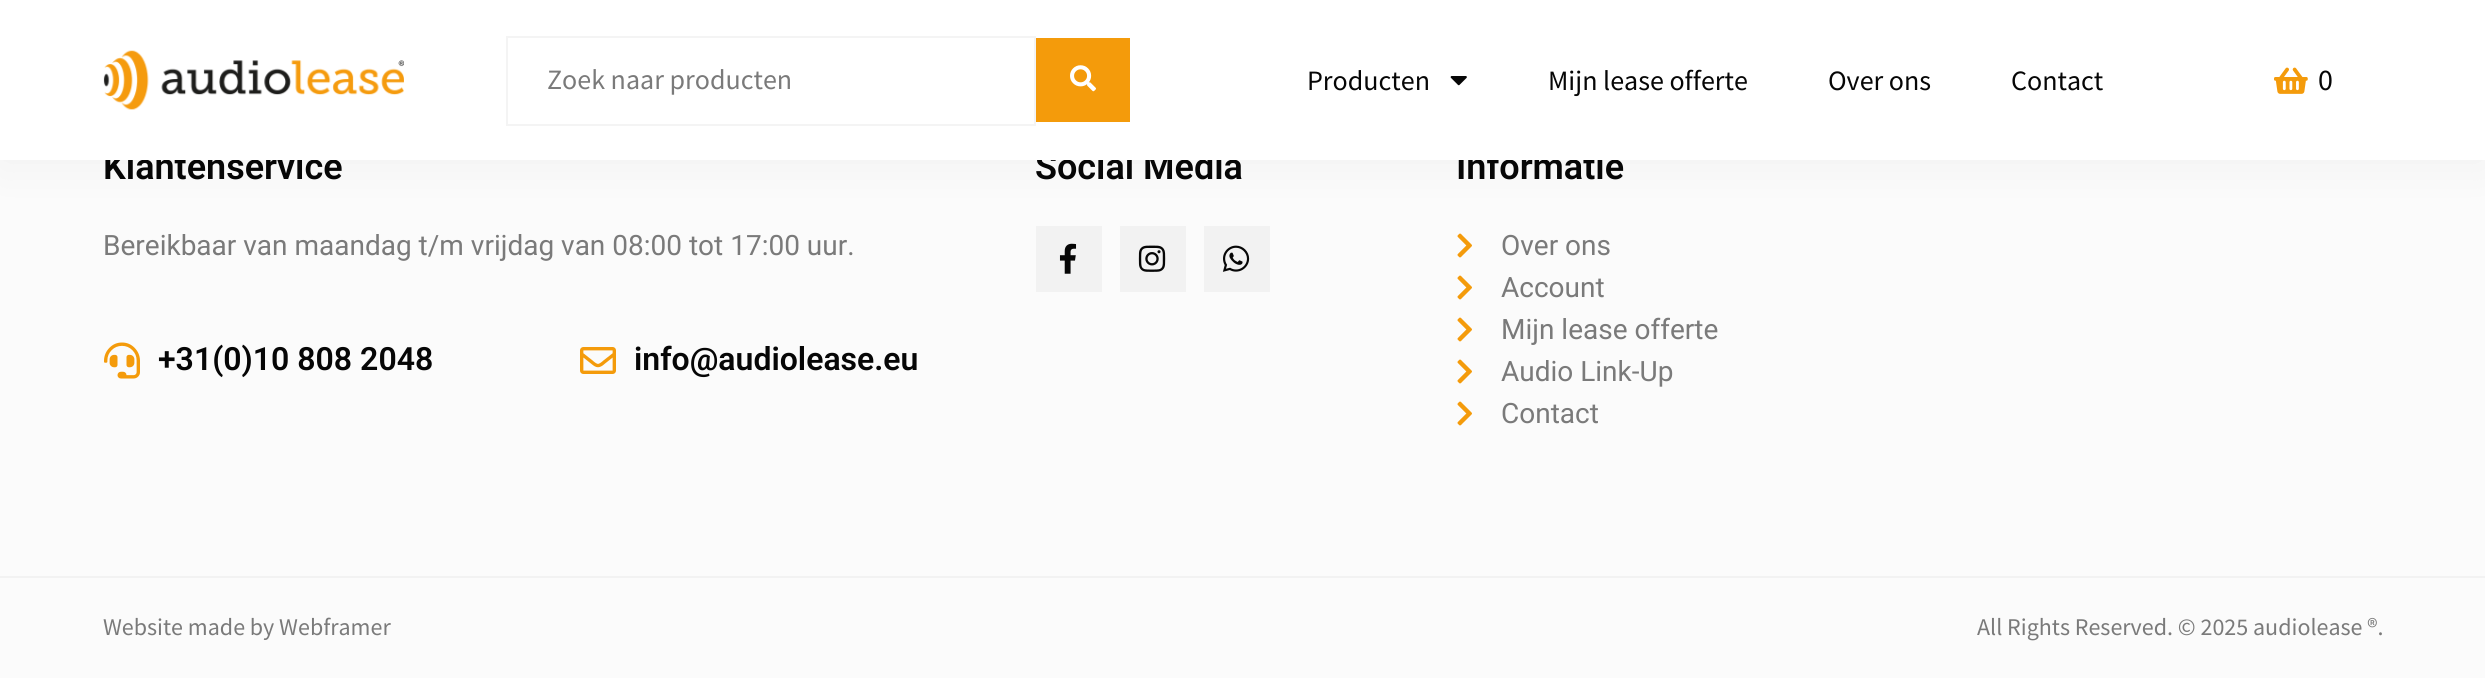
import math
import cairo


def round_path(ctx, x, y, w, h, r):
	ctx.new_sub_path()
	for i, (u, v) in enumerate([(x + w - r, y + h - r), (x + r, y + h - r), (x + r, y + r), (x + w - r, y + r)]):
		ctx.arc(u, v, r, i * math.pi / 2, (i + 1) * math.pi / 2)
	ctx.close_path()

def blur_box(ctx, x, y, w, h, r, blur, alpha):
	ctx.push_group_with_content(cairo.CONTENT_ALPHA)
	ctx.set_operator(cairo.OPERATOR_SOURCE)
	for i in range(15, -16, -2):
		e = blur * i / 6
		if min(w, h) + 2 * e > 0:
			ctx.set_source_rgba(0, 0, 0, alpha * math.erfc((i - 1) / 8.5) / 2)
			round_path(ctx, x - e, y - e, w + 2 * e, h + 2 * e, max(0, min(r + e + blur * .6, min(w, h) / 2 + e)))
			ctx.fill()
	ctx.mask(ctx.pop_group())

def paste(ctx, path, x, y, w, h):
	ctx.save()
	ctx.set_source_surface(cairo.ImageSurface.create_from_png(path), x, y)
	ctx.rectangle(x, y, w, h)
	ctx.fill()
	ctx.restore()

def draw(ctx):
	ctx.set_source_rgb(0.984, 0.984, 0.984)
	ctx.paint()
	ctx.set_source_rgb(0.949, 0.949, 0.949)
	ctx.rectangle(1036, 226, 66, 66)
	ctx.rectangle(1120, 226, 66, 66)
	ctx.rectangle(1204, 226, 66, 66)
	ctx.fill()
	paste(ctx, 'media/10.png', 1457, 233, 15, 25)
	ctx.set_source_rgb(0, 0, 0)
	blur_box(ctx, 0, 0, 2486, 160, 0, 25, 0.05)
	ctx.select_font_face('Roboto SemiBold')
	ctx.set_font_size(36)
	ctx.set_source_rgb(0.027, 0.027, 0.027)
	for x, y, s in [
		(103, 179, 'Klantenservice'),
		(1035, 179, 'Social Media'),
		(1456, 179, 'Informatie'),
	]:
		ctx.move_to(x, y)
		ctx.show_text(s)
	ctx.set_source_rgb(1, 1, 1)
	ctx.rectangle(0, 0, 2485, 160)
	ctx.fill()
	paste(ctx, 'media/1.png', 103, 50, 301, 60)
	ctx.rectangle(507, 37, 528, 88)
	ctx.set_source_rgb(0.957, 0.957, 0.957)
	ctx.stroke()
	ctx.select_font_face('Source Sans Pro')
	ctx.set_font_size(28)
	ctx.set_source_rgb(0.478, 0.478, 0.478)
	ctx.move_to(547, 89)
	ctx.show_text('Zoek naar producten')
	ctx.set_source_rgb(0.957, 0.608, 0.043)
	ctx.rectangle(1036, 38, 94, 84)
	ctx.fill()
	paste(ctx, 'media/2.png', 1070, 65, 26, 27)
	ctx.set_source_rgb(0.027, 0.027, 0.027)
	ctx.move_to(1307, 90)
	ctx.show_text('Producten')
	paste(ctx, 'media/3.png', 1450, 76, 17, 10)
	for x, y, s in [
		(1548, 90, 'Mijn lease offerte'),
		(1828, 90, 'Over ons'),
		(2011, 90, 'Contact'),
	]:
		ctx.move_to(x, y)
		ctx.show_text(s)
	paste(ctx, 'media/4.png', 2274, 67, 34, 27)
	ctx.set_font_size(30)
	ctx.move_to(2318, 90)
	ctx.show_text('0')
	ctx.select_font_face('Roboto')
	ctx.set_font_size(28)
	ctx.set_source_rgb(0.478, 0.478, 0.478)
	ctx.move_to(103, 255)
	ctx.show_text('Bereikbaar van maandag t/m vrijdag van 08:00 tot 17:00 uur.')
	paste(ctx, 'media/5.png', 104, 342, 36, 37)
	ctx.select_font_face('Roboto SemiBold')
	ctx.set_font_size(32)
	ctx.set_source_rgb(0.027, 0.027, 0.027)
	ctx.move_to(158, 370)
	ctx.show_text('+31(0)10 808 2048')
	paste(ctx, 'media/6.png', 580, 347, 36, 27)
	ctx.move_to(634, 370)
	ctx.show_text('info@audiolease.eu')
	paste(ctx, 'media/7.png', 1059, 243, 18, 31)
	paste(ctx, 'media/8.png', 1138, 245, 28, 27)
	paste(ctx, 'media/9.png', 1222, 245, 28, 27)
	ctx.select_font_face('Roboto')
	ctx.set_font_size(28)
	ctx.set_source_rgb(0.478, 0.478, 0.478)
	ctx.move_to(1501, 255)
	ctx.show_text('Over ons')
	paste(ctx, 'media/10.png', 1457, 275, 15, 25)
	ctx.move_to(1501, 297)
	ctx.show_text('Account')
	paste(ctx, 'media/10.png', 1457, 317, 15, 25)
	ctx.move_to(1501, 339)
	ctx.show_text('Mijn lease offerte')
	paste(ctx, 'media/10.png', 1457, 359, 15, 25)
	ctx.move_to(1501, 381)
	ctx.show_text('Audio Link-Up')
	paste(ctx, 'media/10.png', 1457, 401, 15, 25)
	ctx.move_to(1501, 423)
	ctx.show_text('Contact')
	ctx.set_source_rgb(0.949, 0.949, 0.949)
	ctx.rectangle(0, 576, 2485, 2)
	ctx.fill()
	ctx.select_font_face('Source Sans Pro')
	ctx.set_font_size(24)
	ctx.set_source_rgb(0.478, 0.478, 0.478)
	ctx.move_to(103, 635)
	ctx.show_text('Website made by Webframer')
	ctx.move_to(1977, 635)
	ctx.show_text('All Rights Reserved. © 2025 audiolease ®.')


surface = cairo.ImageSurface(cairo.FORMAT_RGB24, 2485, 678)
ctx = cairo.Context(surface)
options = cairo.FontOptions()
options.set_hint_metrics(cairo.HINT_METRICS_OFF)
options.set_hint_style(cairo.HINT_STYLE_NONE)
ctx.set_font_options(options)
ctx.set_miter_limit(4)
draw(ctx)
surface.write_to_png('image.png')
